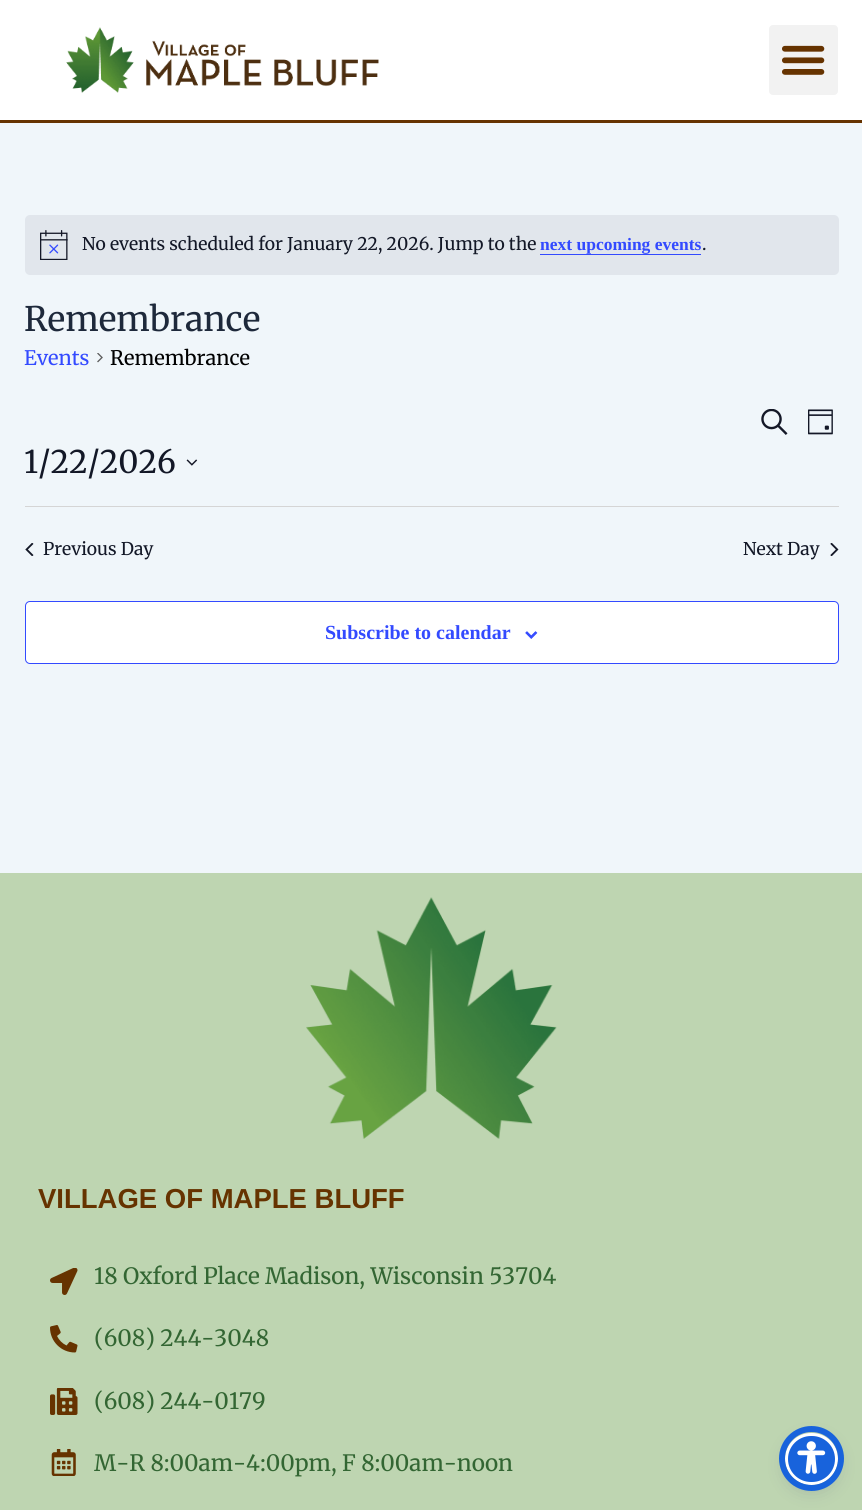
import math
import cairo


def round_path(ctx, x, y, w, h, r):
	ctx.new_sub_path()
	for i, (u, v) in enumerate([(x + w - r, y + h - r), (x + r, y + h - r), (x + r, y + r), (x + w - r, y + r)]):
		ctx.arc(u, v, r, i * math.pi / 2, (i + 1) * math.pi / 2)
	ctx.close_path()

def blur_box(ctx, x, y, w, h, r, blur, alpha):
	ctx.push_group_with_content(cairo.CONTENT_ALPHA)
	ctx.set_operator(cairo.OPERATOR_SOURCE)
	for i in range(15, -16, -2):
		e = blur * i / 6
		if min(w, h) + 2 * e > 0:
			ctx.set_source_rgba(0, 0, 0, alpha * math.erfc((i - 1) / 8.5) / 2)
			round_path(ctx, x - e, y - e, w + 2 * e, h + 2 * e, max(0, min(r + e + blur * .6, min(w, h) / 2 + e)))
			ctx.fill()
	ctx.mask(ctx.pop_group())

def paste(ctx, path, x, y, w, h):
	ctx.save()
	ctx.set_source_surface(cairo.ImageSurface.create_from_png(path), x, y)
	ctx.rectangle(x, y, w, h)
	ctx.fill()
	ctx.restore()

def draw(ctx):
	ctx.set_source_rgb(0.941, 0.961, 0.98)
	ctx.paint()
	ctx.set_source_rgb(1, 1, 1)
	ctx.rectangle(0, 0, 862, 120)
	ctx.fill()
	ctx.set_source_rgb(0.4, 0.2, 0)
	ctx.rectangle(0, 120, 862, 3)
	ctx.fill()
	paste(ctx, 'media/1.png', 66, 27, 313, 66)
	ctx.set_source_rgb(0.949, 0.949, 0.949)
	round_path(ctx, 769, 25, 69, 70, 4)
	ctx.fill()
	paste(ctx, 'media/2.png', 782, 45, 43, 30)
	ctx.set_source_rgb(0.882, 0.902, 0.922)
	round_path(ctx, 25, 215, 814, 60, 5)
	ctx.fill()
	paste(ctx, 'media/3.png', 40, 230, 28, 30)
	ctx.select_font_face('Merriweather Light')
	ctx.set_font_size(17.5)
	ctx.set_source_rgb(0.078, 0.094, 0.153)
	ctx.move_to(82, 250)
	ctx.show_text('No events scheduled for January 22, 2026. Jump to the')
	ctx.select_font_face('Liberation Serif', cairo.FONT_SLANT_NORMAL, cairo.FONT_WEIGHT_BOLD)
	ctx.set_source_rgb(0.2, 0.29, 1)
	ctx.move_to(540, 250)
	ctx.show_text('next upcoming events')
	ctx.rectangle(540, 254, 161, 1)
	ctx.fill()
	ctx.select_font_face('Merriweather Light')
	ctx.set_source_rgb(0.078, 0.094, 0.153)
	ctx.move_to(702, 250)
	ctx.show_text('.')
	ctx.set_font_size(33.75)
	ctx.set_source_rgb(0.118, 0.161, 0.231)
	ctx.move_to(24, 331)
	ctx.show_text('Remembrance')
	ctx.set_font_size(20)
	ctx.set_source_rgb(0.2, 0.29, 1)
	ctx.move_to(24, 365)
	ctx.show_text('Events')
	paste(ctx, 'media/4.png', 97, 353, 6, 10)
	ctx.set_source_rgb(0, 0, 0)
	ctx.move_to(110, 365)
	ctx.show_text('Remembrance')
	paste(ctx, 'media/5.png', 761, 409, 27, 26)
	paste(ctx, 'media/6.png', 808, 409, 25, 26)
	ctx.set_font_size(31.25)
	ctx.set_source_rgb(0.078, 0.094, 0.153)
	ctx.move_to(24, 473)
	ctx.show_text('1/22/2026')
	paste(ctx, 'media/7.png', 186, 459, 12, 7)
	ctx.set_source_rgb(0.835, 0.835, 0.835)
	ctx.rectangle(25, 506, 814, 1)
	ctx.fill()
	paste(ctx, 'media/8.png', 25, 543, 9, 13)
	ctx.set_font_size(17.5)
	ctx.set_source_rgb(0.078, 0.094, 0.153)
	ctx.move_to(43, 555)
	ctx.show_text('Previous Day')
	ctx.move_to(743, 555)
	ctx.show_text('Next Day')
	paste(ctx, 'media/9.png', 830, 543, 9, 13)
	ctx.set_source_rgb(1, 1, 1)
	round_path(ctx, 25.5, 601.5, 813, 62, 4.5)
	ctx.fill_preserve()
	ctx.set_source_rgb(0.2, 0.29, 1)
	ctx.set_line_width(1)
	ctx.stroke()
	ctx.select_font_face('Liberation Serif', cairo.FONT_SLANT_NORMAL, cairo.FONT_WEIGHT_BOLD)
	ctx.set_font_size(20)
	ctx.move_to(325, 639)
	ctx.show_text('Subscribe to calendar')
	paste(ctx, 'media/10.png', 525, 631, 13, 8)
	ctx.set_source_rgb(0.745, 0.835, 0.694)
	ctx.rectangle(0, 873, 862, 637)
	ctx.fill()
	paste(ctx, 'media/11.png', 306, 897, 251, 242)
	ctx.select_font_face('Liberation Sans', cairo.FONT_SLANT_NORMAL, cairo.FONT_WEIGHT_BOLD)
	ctx.set_font_size(27.5)
	ctx.set_source_rgb(0.4, 0.2, 0)
	ctx.move_to(38, 1208)
	ctx.show_text('VILLAGE OF MAPLE BLUFF')
	paste(ctx, 'media/12.png', 50, 1268, 28, 27)
	ctx.select_font_face('Merriweather Light')
	ctx.set_font_size(22.5)
	ctx.set_source_rgb(0.2, 0.4, 0.2)
	ctx.move_to(94, 1284)
	ctx.show_text('18 Oxford Place Madison, Wisconsin 53704')
	paste(ctx, 'media/13.png', 50, 1325, 28, 28)
	ctx.move_to(94, 1346)
	ctx.show_text('(608) 244-3048')
	paste(ctx, 'media/14.png', 50, 1388, 28, 27)
	ctx.move_to(94, 1409)
	ctx.show_text('(608) 244-0179')
	paste(ctx, 'media/15.png', 51, 1449, 25, 27)
	ctx.move_to(94, 1471)
	ctx.show_text('M-R 8:00am-4:00pm, F 8:00am-noon')
	ctx.set_source_rgb(0.365, 0.392, 0.58)
	blur_box(ctx, 785, 1435, 53, 53, 26.5, 2.5, 0.2)
	ctx.set_source_rgb(0.145, 0.173, 0.38)
	blur_box(ctx, 785, 1439, 53, 52, 26, 9.5, 0.15)
	ctx.set_source_rgb(0.094, 0.388, 0.863)
	round_path(ctx, 786.5, 1434.5, 50, 49, 24.5)
	ctx.fill_preserve()
	ctx.set_source_rgb(1, 1, 1)
	ctx.set_line_width(3)
	ctx.stroke()
	ctx.arc(811.5, 1458.5, 29.5, 0, 2 * math.pi)
	ctx.set_source_rgb(0.094, 0.388, 0.863)
	ctx.set_line_width(6)
	ctx.stroke()
	paste(ctx, 'media/16.png', 797, 1441, 29, 33)


surface = cairo.ImageSurface(cairo.FORMAT_RGB24, 862, 1510)
ctx = cairo.Context(surface)
options = cairo.FontOptions()
options.set_hint_metrics(cairo.HINT_METRICS_OFF)
options.set_hint_style(cairo.HINT_STYLE_NONE)
ctx.set_font_options(options)
ctx.set_miter_limit(4)
draw(ctx)
surface.write_to_png('image.png')
